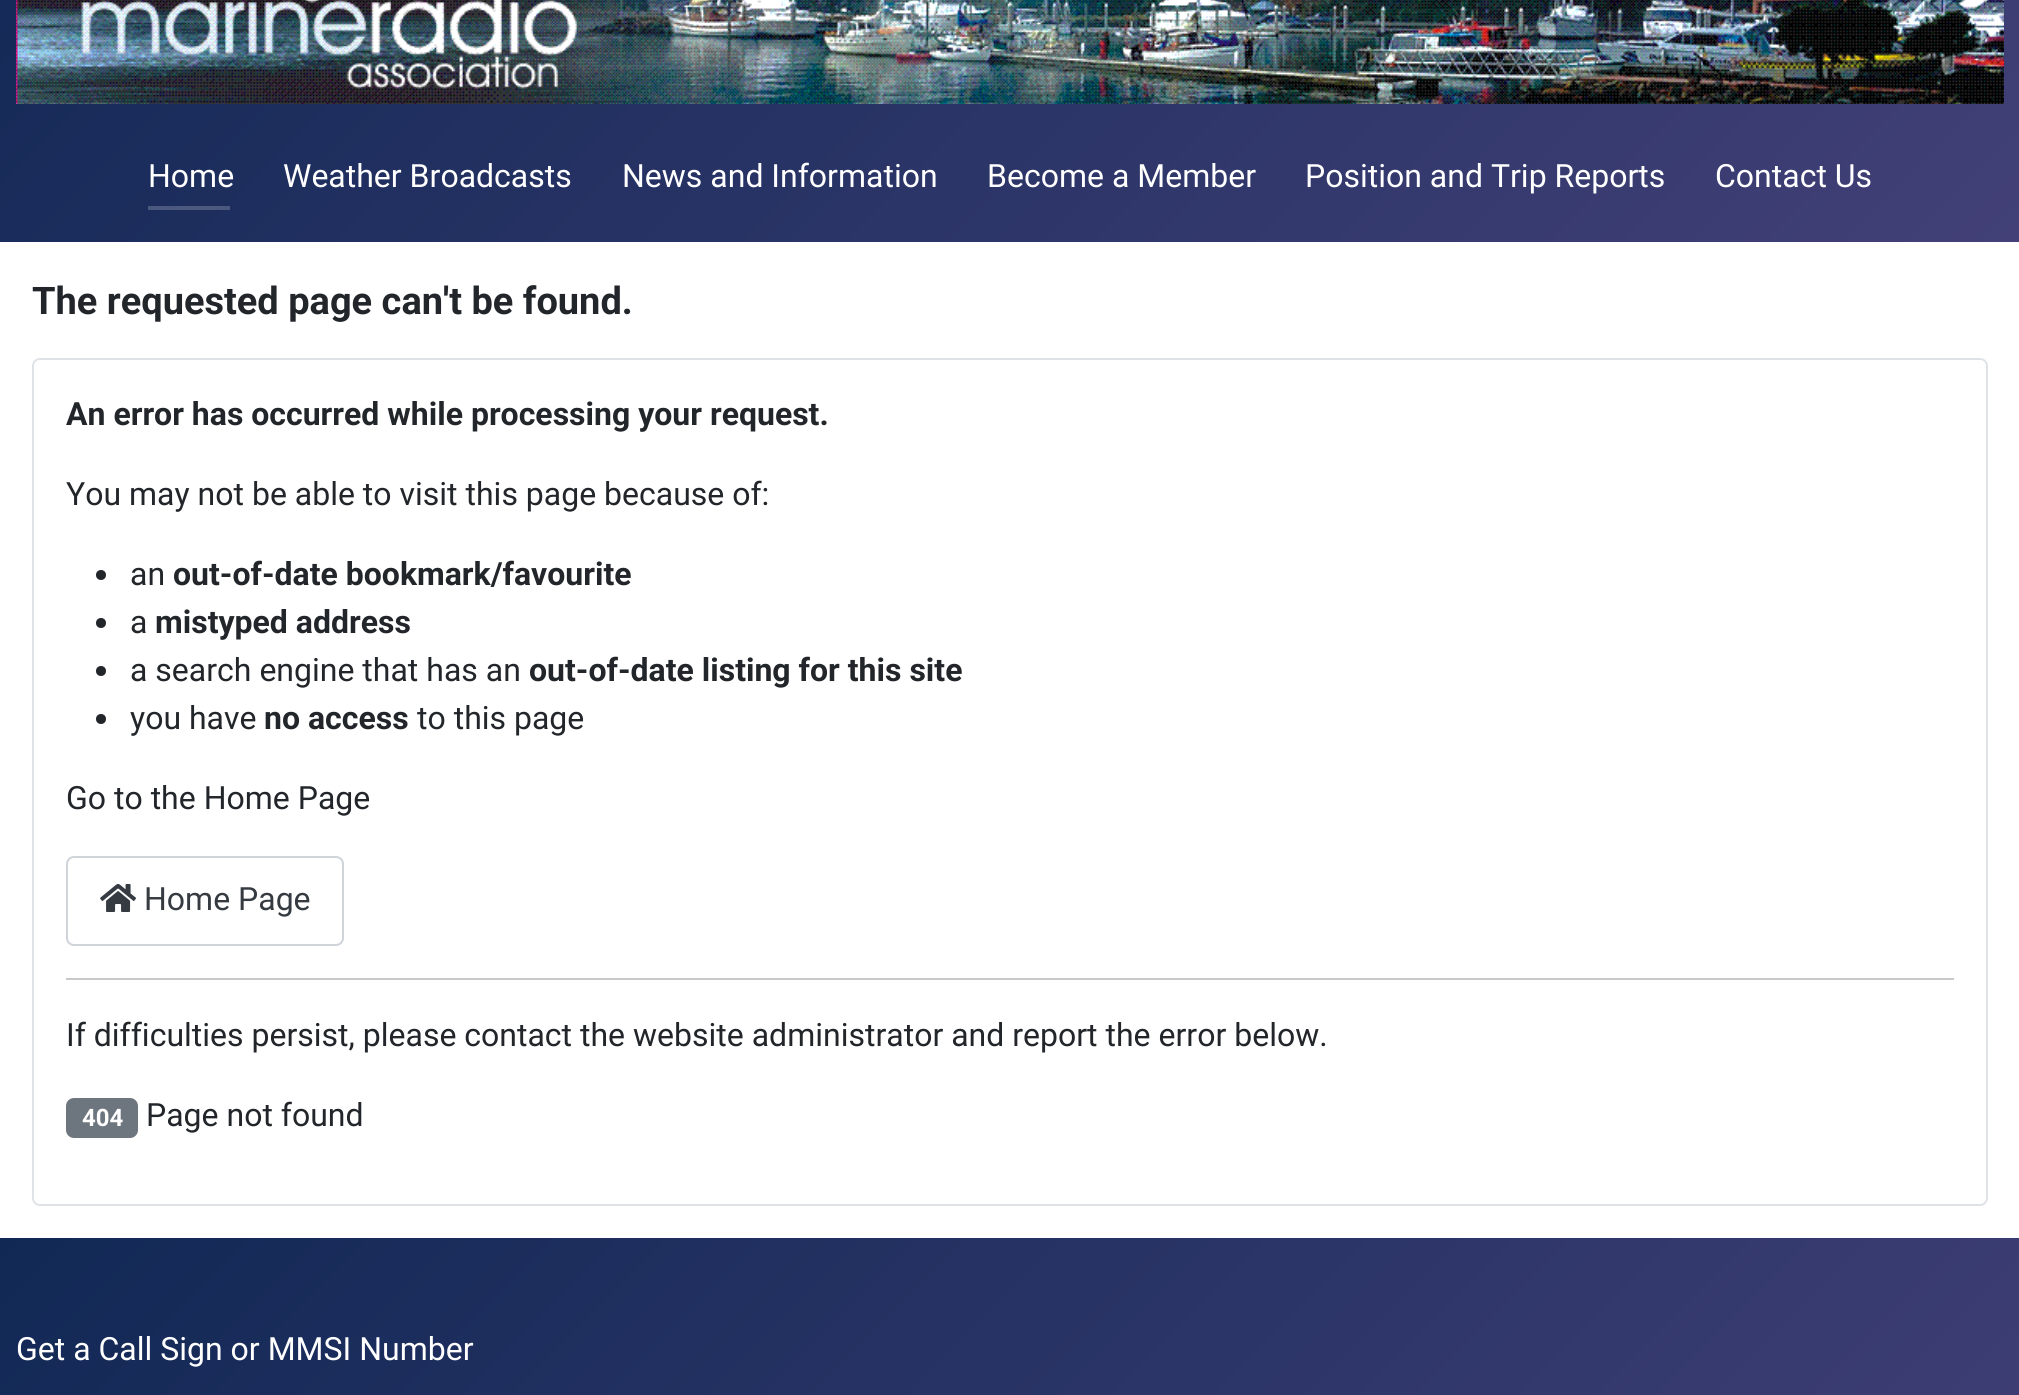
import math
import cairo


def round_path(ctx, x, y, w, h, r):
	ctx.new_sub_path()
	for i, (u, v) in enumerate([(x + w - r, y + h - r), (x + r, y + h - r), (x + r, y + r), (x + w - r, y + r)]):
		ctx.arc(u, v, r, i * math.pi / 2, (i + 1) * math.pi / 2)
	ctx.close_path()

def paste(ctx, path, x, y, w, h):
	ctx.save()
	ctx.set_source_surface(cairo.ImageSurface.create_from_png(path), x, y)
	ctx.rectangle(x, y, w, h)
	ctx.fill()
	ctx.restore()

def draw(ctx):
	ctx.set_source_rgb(1, 1, 1)
	ctx.paint()
	gradient = cairo.LinearGradient(397, -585, 1623, 640)
	gradient.add_color_stop_rgba(0, 0.067, 0.157, 0.333, 1)
	gradient.add_color_stop_rgba(1, 0.259, 0.251, 0.467, 1)
	ctx.set_source(gradient)
	ctx.rectangle(0, 0, 2019, 242)
	ctx.fill()
	paste(ctx, 'media/1.png', 16, 0, 1988, 104)
	ctx.select_font_face('Roboto')
	ctx.set_font_size(32)
	ctx.set_source_rgb(1, 1, 1)
	ctx.move_to(148, 187)
	ctx.show_text('Home')
	ctx.set_source_rgb(0.29, 0.345, 0.494)
	ctx.rectangle(148, 206, 82, 4)
	ctx.fill()
	ctx.set_source_rgb(1, 1, 1)
	for x, y, s in [
		(283, 187, 'Weather Broadcasts'),
		(622, 187, 'News and Information'),
		(987, 187, 'Become a Member'),
		(1305, 187, 'Position and Trip Reports'),
		(1715, 187, 'Contact Us'),
	]:
		ctx.move_to(x, y)
		ctx.show_text(s)
	ctx.select_font_face('Roboto', cairo.FONT_SLANT_NORMAL, cairo.FONT_WEIGHT_BOLD)
	ctx.set_font_size(38)
	ctx.set_source_rgb(0.133, 0.149, 0.165)
	ctx.move_to(32, 314)
	ctx.show_text('The requested page can\'t be found.')
	round_path(ctx, 33, 359, 1954, 846, 7)
	ctx.set_source_rgb(0.875, 0.89, 0.906)
	ctx.stroke()
	ctx.set_font_size(32)
	ctx.set_source_rgb(0.133, 0.149, 0.165)
	ctx.move_to(66, 425)
	ctx.show_text('An error has occurred while processing your request.')
	ctx.select_font_face('Roboto')
	ctx.move_to(66, 505)
	ctx.show_text('You may not be able to visit this page because of:')
	ctx.new_path()
	ctx.arc(101, 575, 5, 0, 2 * math.pi)
	ctx.fill()
	ctx.move_to(130, 585)
	ctx.show_text('an')
	ctx.select_font_face('Roboto', cairo.FONT_SLANT_NORMAL, cairo.FONT_WEIGHT_BOLD)
	ctx.move_to(173, 585)
	ctx.show_text('out-of-date bookmark/favourite')
	ctx.new_path()
	ctx.arc(101, 623, 5, 0, 2 * math.pi)
	ctx.fill()
	ctx.select_font_face('Roboto')
	ctx.move_to(130, 633)
	ctx.show_text('a')
	ctx.select_font_face('Roboto', cairo.FONT_SLANT_NORMAL, cairo.FONT_WEIGHT_BOLD)
	ctx.move_to(155, 633)
	ctx.show_text('mistyped address')
	ctx.new_path()
	ctx.arc(101, 671, 5, 0, 2 * math.pi)
	ctx.fill()
	ctx.select_font_face('Roboto')
	ctx.move_to(130, 681)
	ctx.show_text('a search engine that has an')
	ctx.select_font_face('Roboto', cairo.FONT_SLANT_NORMAL, cairo.FONT_WEIGHT_BOLD)
	ctx.move_to(529, 681)
	ctx.show_text('out-of-date listing for this site')
	ctx.new_path()
	ctx.arc(101, 719, 5, 0, 2 * math.pi)
	ctx.fill()
	ctx.select_font_face('Roboto')
	ctx.move_to(130, 729)
	ctx.show_text('you have')
	ctx.select_font_face('Roboto', cairo.FONT_SLANT_NORMAL, cairo.FONT_WEIGHT_BOLD)
	ctx.move_to(264, 729)
	ctx.show_text('no access')
	ctx.select_font_face('Roboto')
	ctx.move_to(417, 729)
	ctx.show_text('to this page')
	ctx.move_to(66, 809)
	ctx.show_text('Go to the Home Page')
	round_path(ctx, 67, 857, 276, 88, 7)
	ctx.set_source_rgb(0.808, 0.831, 0.855)
	ctx.stroke()
	paste(ctx, 'media/2.png', 100, 884, 36, 28)
	ctx.set_source_rgb(0.208, 0.231, 0.255)
	ctx.move_to(144, 910)
	ctx.show_text('Home Page')
	ctx.set_source_rgb(0.784, 0.788, 0.792)
	ctx.rectangle(66, 978, 1888, 2)
	ctx.fill()
	ctx.set_source_rgb(0.133, 0.149, 0.165)
	ctx.move_to(66, 1046)
	ctx.show_text('If difficulties persist, please contact the website administrator and report the error below.')
	ctx.set_source_rgb(0.427, 0.459, 0.494)
	round_path(ctx, 66, 1098, 72, 40, 8)
	ctx.fill()
	ctx.select_font_face('Roboto', cairo.FONT_SLANT_NORMAL, cairo.FONT_WEIGHT_BOLD)
	ctx.set_font_size(24)
	ctx.set_source_rgb(1, 1, 1)
	ctx.move_to(82, 1126)
	ctx.show_text('404')
	ctx.select_font_face('Roboto')
	ctx.set_font_size(32)
	ctx.set_source_rgb(0.133, 0.149, 0.165)
	ctx.move_to(146, 1126)
	ctx.show_text('Page not found')
	gradient = cairo.LinearGradient(401, 837, 1619, 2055)
	gradient.add_color_stop_rgba(0, 0.067, 0.157, 0.333, 1)
	gradient.add_color_stop_rgba(1, 0.259, 0.251, 0.467, 1)
	ctx.set_source(gradient)
	ctx.rectangle(0, 1238, 2019, 157)
	ctx.fill()
	ctx.set_source_rgb(1, 1, 1)
	ctx.move_to(16, 1360)
	ctx.show_text('Get a Call Sign or MMSI Number')


surface = cairo.ImageSurface(cairo.FORMAT_RGB24, 2019, 1395)
ctx = cairo.Context(surface)
options = cairo.FontOptions()
options.set_hint_metrics(cairo.HINT_METRICS_OFF)
options.set_hint_style(cairo.HINT_STYLE_NONE)
ctx.set_font_options(options)
ctx.set_miter_limit(4)
draw(ctx)
surface.write_to_png('image.png')
